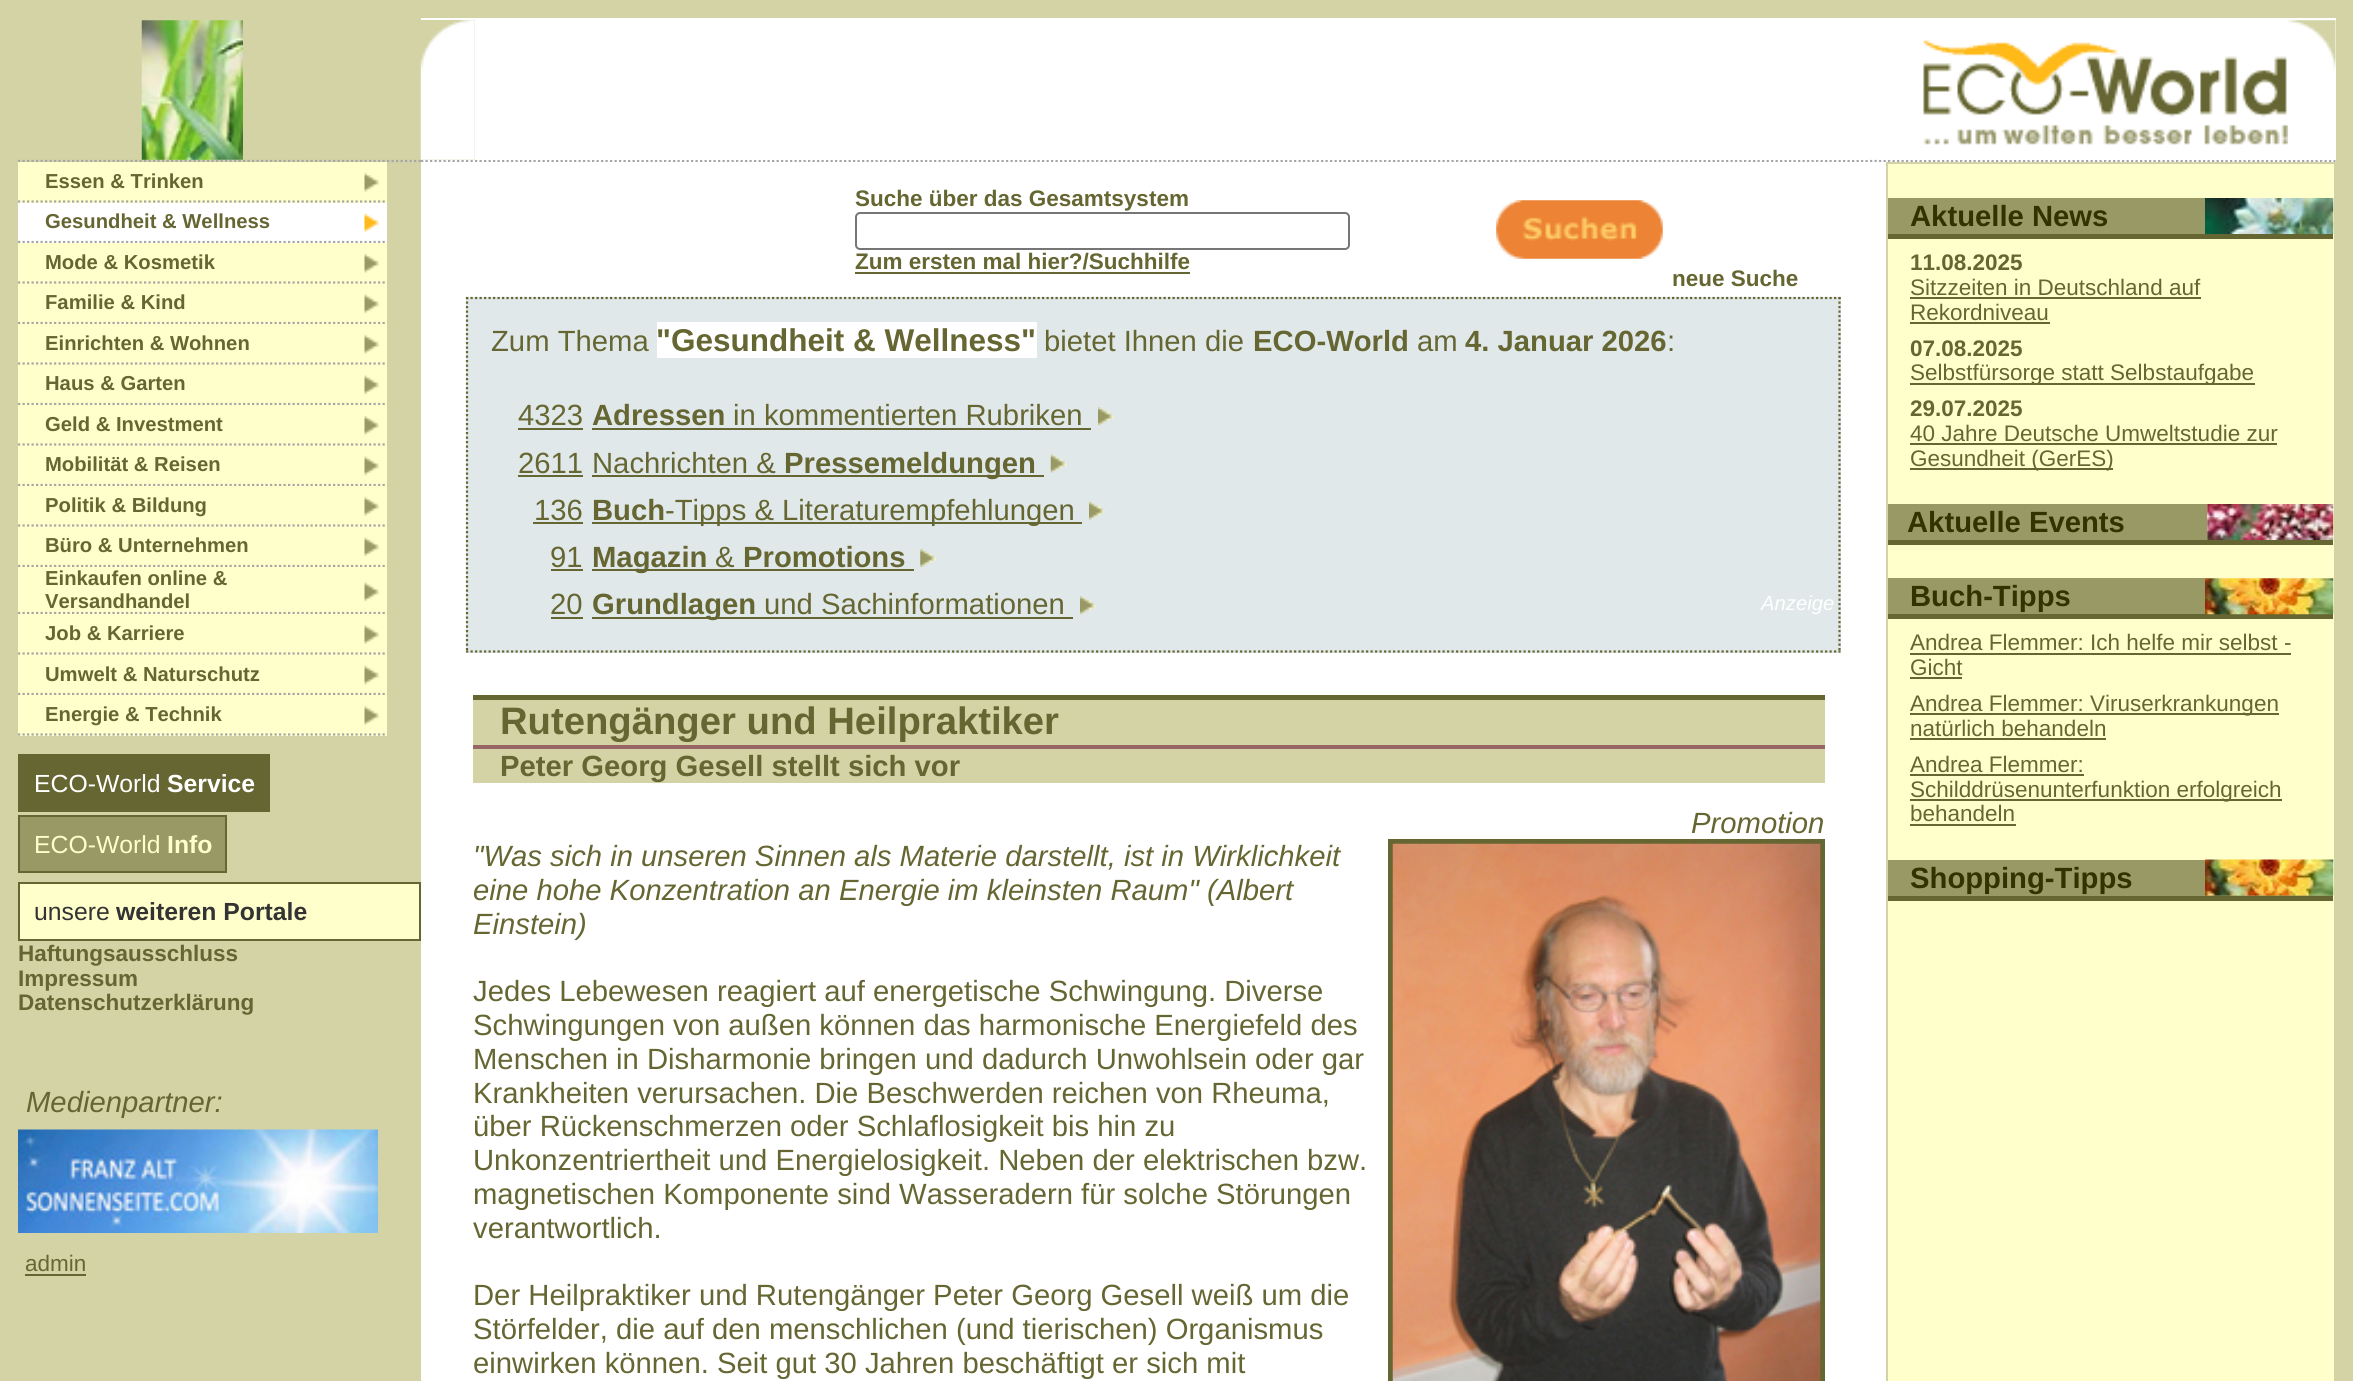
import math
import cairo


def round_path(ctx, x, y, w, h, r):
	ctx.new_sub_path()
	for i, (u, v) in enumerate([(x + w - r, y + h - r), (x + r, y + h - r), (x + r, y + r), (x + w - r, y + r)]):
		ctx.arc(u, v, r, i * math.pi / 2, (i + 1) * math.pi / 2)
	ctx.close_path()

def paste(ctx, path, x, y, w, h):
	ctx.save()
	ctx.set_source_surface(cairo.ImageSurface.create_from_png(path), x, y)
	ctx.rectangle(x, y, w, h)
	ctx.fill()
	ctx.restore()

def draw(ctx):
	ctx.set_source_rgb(0.827, 0.827, 0.651)
	ctx.paint()
	ctx.new_path()
	ctx.move_to(18, 161)
	ctx.line_to(421, 161)
	ctx.set_source_rgb(0.651, 0.651, 0.651)
	ctx.set_line_width(2.2)
	ctx.set_dash([2.25, 2.25])
	ctx.stroke()
	paste(ctx, 'media/1.png', 141, 20, 102, 140)
	ctx.set_source_rgb(1, 1, 1)
	ctx.rectangle(421, 18, 1915, 144)
	ctx.fill()
	ctx.new_path()
	ctx.move_to(421, 161)
	ctx.line_to(2335.5, 161)
	ctx.set_source_rgb(0.651, 0.651, 0.651)
	ctx.stroke()
	ctx.set_source_rgb(0.827, 0.827, 0.651)
	ctx.rectangle(421, 20, 54, 140)
	ctx.fill()
	paste(ctx, 'media/2.png', 420, 20, 55, 140)
	ctx.set_source_rgb(1, 1, 1)
	ctx.rectangle(475, 159, 1393, 1)
	ctx.fill()
	paste(ctx, 'media/3.png', 1879, 40, 410, 120)
	paste(ctx, 'media/4.png', 2288, 20, 48, 140)
	ctx.set_source_rgb(1, 1, 0.8)
	ctx.rectangle(18, 162, 369, 41)
	ctx.fill()
	ctx.new_path()
	ctx.move_to(18, 201.5)
	ctx.line_to(45, 201.5)
	ctx.set_source_rgb(0.651, 0.651, 0.651)
	ctx.stroke()
	ctx.new_path()
	ctx.move_to(45, 201.5)
	ctx.line_to(364.5, 201.5)
	ctx.stroke()
	ctx.select_font_face('Liberation Sans', cairo.FONT_SLANT_NORMAL, cairo.FONT_WEIGHT_BOLD)
	ctx.set_font_size(20.25)
	ctx.set_source_rgb(0.4, 0.4, 0.2)
	ctx.move_to(45, 188)
	ctx.show_text('Essen & Trinken')
	ctx.new_path()
	ctx.move_to(364.5, 201.5)
	ctx.line_to(387, 201.5)
	ctx.set_source_rgb(0.651, 0.651, 0.651)
	ctx.stroke()
	paste(ctx, 'media/5.png', 364, 172, 16, 20)
	ctx.set_source_rgb(1, 1, 1)
	ctx.rectangle(18, 203, 369, 40)
	ctx.fill()
	ctx.new_path()
	ctx.move_to(18, 242)
	ctx.line_to(45, 242)
	ctx.set_source_rgb(0.651, 0.651, 0.651)
	ctx.stroke()
	ctx.new_path()
	ctx.move_to(45, 242)
	ctx.line_to(364.5, 242)
	ctx.stroke()
	ctx.set_source_rgb(0.4, 0.4, 0.2)
	ctx.move_to(45, 228)
	ctx.show_text('Gesundheit & Wellness')
	ctx.new_path()
	ctx.move_to(364.5, 242)
	ctx.line_to(387, 242)
	ctx.set_source_rgb(0.651, 0.651, 0.651)
	ctx.stroke()
	paste(ctx, 'media/6.png', 364, 213, 17, 20)
	ctx.set_source_rgb(1, 1, 0.8)
	ctx.rectangle(18, 243, 369, 41)
	ctx.fill()
	ctx.new_path()
	ctx.move_to(18, 282.5)
	ctx.line_to(45, 282.5)
	ctx.set_source_rgb(0.651, 0.651, 0.651)
	ctx.stroke()
	ctx.new_path()
	ctx.move_to(45, 282.5)
	ctx.line_to(364.5, 282.5)
	ctx.stroke()
	ctx.set_source_rgb(0.4, 0.4, 0.2)
	ctx.move_to(45, 269)
	ctx.show_text('Mode & Kosmetik')
	ctx.new_path()
	ctx.move_to(364.5, 282.5)
	ctx.line_to(387, 282.5)
	ctx.set_source_rgb(0.651, 0.651, 0.651)
	ctx.stroke()
	paste(ctx, 'media/5.png', 364, 253, 16, 20)
	ctx.set_source_rgb(1, 1, 0.8)
	ctx.rectangle(18, 284, 369, 40)
	ctx.fill()
	ctx.new_path()
	ctx.move_to(18, 323)
	ctx.line_to(45, 323)
	ctx.set_source_rgb(0.651, 0.651, 0.651)
	ctx.stroke()
	ctx.new_path()
	ctx.move_to(45, 323)
	ctx.line_to(364.5, 323)
	ctx.stroke()
	ctx.set_source_rgb(0.4, 0.4, 0.2)
	ctx.move_to(45, 309)
	ctx.show_text('Familie & Kind')
	ctx.new_path()
	ctx.move_to(364.5, 323)
	ctx.line_to(387, 323)
	ctx.set_source_rgb(0.651, 0.651, 0.651)
	ctx.stroke()
	paste(ctx, 'media/7.png', 364, 294, 16, 20)
	ctx.set_source_rgb(1, 1, 0.8)
	ctx.rectangle(18, 324, 369, 41)
	ctx.fill()
	ctx.new_path()
	ctx.move_to(18, 363.5)
	ctx.line_to(45, 363.5)
	ctx.set_source_rgb(0.651, 0.651, 0.651)
	ctx.stroke()
	ctx.new_path()
	ctx.move_to(45, 363.5)
	ctx.line_to(364.5, 363.5)
	ctx.stroke()
	ctx.set_source_rgb(0.4, 0.4, 0.2)
	ctx.move_to(45, 350)
	ctx.show_text('Einrichten & Wohnen')
	ctx.new_path()
	ctx.move_to(364.5, 363.5)
	ctx.line_to(387, 363.5)
	ctx.set_source_rgb(0.651, 0.651, 0.651)
	ctx.stroke()
	paste(ctx, 'media/5.png', 364, 334, 16, 20)
	ctx.set_source_rgb(1, 1, 0.8)
	ctx.rectangle(18, 365, 369, 40)
	ctx.fill()
	ctx.new_path()
	ctx.move_to(18, 404)
	ctx.line_to(45, 404)
	ctx.set_source_rgb(0.651, 0.651, 0.651)
	ctx.stroke()
	ctx.new_path()
	ctx.move_to(45, 404)
	ctx.line_to(364.5, 404)
	ctx.stroke()
	ctx.set_source_rgb(0.4, 0.4, 0.2)
	ctx.move_to(45, 390)
	ctx.show_text('Haus & Garten')
	ctx.new_path()
	ctx.move_to(364.5, 404)
	ctx.line_to(387, 404)
	ctx.set_source_rgb(0.651, 0.651, 0.651)
	ctx.stroke()
	paste(ctx, 'media/8.png', 364, 375, 16, 20)
	ctx.set_source_rgb(1, 1, 0.8)
	ctx.rectangle(18, 405, 369, 41)
	ctx.fill()
	ctx.new_path()
	ctx.move_to(18, 444.5)
	ctx.line_to(45, 444.5)
	ctx.set_source_rgb(0.651, 0.651, 0.651)
	ctx.stroke()
	ctx.new_path()
	ctx.move_to(45, 444.5)
	ctx.line_to(364.5, 444.5)
	ctx.stroke()
	ctx.set_source_rgb(0.4, 0.4, 0.2)
	ctx.move_to(45, 431)
	ctx.show_text('Geld & Investment')
	ctx.new_path()
	ctx.move_to(364.5, 444.5)
	ctx.line_to(387, 444.5)
	ctx.set_source_rgb(0.651, 0.651, 0.651)
	ctx.stroke()
	paste(ctx, 'media/5.png', 364, 415, 16, 20)
	ctx.set_source_rgb(1, 1, 0.8)
	ctx.rectangle(18, 446, 369, 40)
	ctx.fill()
	ctx.new_path()
	ctx.move_to(18, 485)
	ctx.line_to(45, 485)
	ctx.set_source_rgb(0.651, 0.651, 0.651)
	ctx.stroke()
	ctx.new_path()
	ctx.move_to(45, 485)
	ctx.line_to(364.5, 485)
	ctx.stroke()
	ctx.set_source_rgb(0.4, 0.4, 0.2)
	ctx.move_to(45, 471)
	ctx.show_text('Mobilität & Reisen')
	ctx.new_path()
	ctx.move_to(364.5, 485)
	ctx.line_to(387, 485)
	ctx.set_source_rgb(0.651, 0.651, 0.651)
	ctx.stroke()
	paste(ctx, 'media/8.png', 364, 456, 16, 20)
	ctx.set_source_rgb(1, 1, 0.8)
	ctx.rectangle(18, 486, 369, 41)
	ctx.fill()
	ctx.new_path()
	ctx.move_to(18, 525.5)
	ctx.line_to(45, 525.5)
	ctx.set_source_rgb(0.651, 0.651, 0.651)
	ctx.stroke()
	ctx.new_path()
	ctx.move_to(45, 525.5)
	ctx.line_to(364.5, 525.5)
	ctx.stroke()
	ctx.set_source_rgb(0.4, 0.4, 0.2)
	ctx.move_to(45, 512)
	ctx.show_text('Politik & Bildung')
	ctx.new_path()
	ctx.move_to(364.5, 525.5)
	ctx.line_to(387, 525.5)
	ctx.set_source_rgb(0.651, 0.651, 0.651)
	ctx.stroke()
	paste(ctx, 'media/5.png', 364, 496, 16, 20)
	ctx.set_source_rgb(1, 1, 0.8)
	ctx.rectangle(18, 527, 369, 40)
	ctx.fill()
	ctx.new_path()
	ctx.move_to(18, 566)
	ctx.line_to(45, 566)
	ctx.set_source_rgb(0.651, 0.651, 0.651)
	ctx.stroke()
	ctx.new_path()
	ctx.move_to(45, 566)
	ctx.line_to(364.5, 566)
	ctx.stroke()
	ctx.set_source_rgb(0.4, 0.4, 0.2)
	ctx.move_to(45, 552)
	ctx.show_text('Büro & Unternehmen')
	ctx.new_path()
	ctx.move_to(364.5, 566)
	ctx.line_to(387, 566)
	ctx.set_source_rgb(0.651, 0.651, 0.651)
	ctx.stroke()
	paste(ctx, 'media/8.png', 364, 537, 16, 20)
	ctx.set_source_rgb(1, 1, 0.8)
	ctx.rectangle(18, 567, 369, 47)
	ctx.fill()
	ctx.new_path()
	ctx.move_to(18, 613)
	ctx.line_to(45, 613)
	ctx.set_source_rgb(0.651, 0.651, 0.651)
	ctx.stroke()
	ctx.new_path()
	ctx.move_to(45, 613)
	ctx.line_to(364.5, 613)
	ctx.stroke()
	ctx.set_source_rgb(0.4, 0.4, 0.2)
	ctx.move_to(45, 585)
	ctx.show_text('Einkaufen online &')
	ctx.move_to(45, 608)
	ctx.show_text('Versandhandel')
	ctx.new_path()
	ctx.move_to(364.5, 613)
	ctx.line_to(387, 613)
	ctx.set_source_rgb(0.651, 0.651, 0.651)
	ctx.stroke()
	paste(ctx, 'media/7.png', 364, 582, 16, 20)
	ctx.set_source_rgb(1, 1, 0.8)
	ctx.rectangle(18, 614, 369, 41)
	ctx.fill()
	ctx.new_path()
	ctx.move_to(18, 653.5)
	ctx.line_to(45, 653.5)
	ctx.set_source_rgb(0.651, 0.651, 0.651)
	ctx.stroke()
	ctx.new_path()
	ctx.move_to(45, 653.5)
	ctx.line_to(364.5, 653.5)
	ctx.stroke()
	ctx.set_source_rgb(0.4, 0.4, 0.2)
	ctx.move_to(45, 640)
	ctx.show_text('Job & Karriere')
	ctx.new_path()
	ctx.move_to(364.5, 653.5)
	ctx.line_to(387, 653.5)
	ctx.set_source_rgb(0.651, 0.651, 0.651)
	ctx.stroke()
	paste(ctx, 'media/9.png', 364, 625, 16, 19)
	ctx.set_source_rgb(1, 1, 0.8)
	ctx.rectangle(18, 655, 369, 40)
	ctx.fill()
	ctx.new_path()
	ctx.move_to(18, 694)
	ctx.line_to(45, 694)
	ctx.set_source_rgb(0.651, 0.651, 0.651)
	ctx.stroke()
	ctx.new_path()
	ctx.move_to(45, 694)
	ctx.line_to(364.5, 694)
	ctx.stroke()
	ctx.set_source_rgb(0.4, 0.4, 0.2)
	ctx.move_to(45, 681)
	ctx.show_text('Umwelt & Naturschutz')
	ctx.new_path()
	ctx.move_to(364.5, 694)
	ctx.line_to(387, 694)
	ctx.set_source_rgb(0.651, 0.651, 0.651)
	ctx.stroke()
	paste(ctx, 'media/10.png', 364, 665, 16, 20)
	ctx.set_source_rgb(1, 1, 0.8)
	ctx.rectangle(18, 695, 369, 41)
	ctx.fill()
	ctx.new_path()
	ctx.move_to(18, 734.5)
	ctx.line_to(45, 734.5)
	ctx.set_source_rgb(0.651, 0.651, 0.651)
	ctx.stroke()
	ctx.new_path()
	ctx.move_to(45, 734.5)
	ctx.line_to(364.5, 734.5)
	ctx.stroke()
	ctx.set_source_rgb(0.4, 0.4, 0.2)
	ctx.move_to(45, 721)
	ctx.show_text('Energie & Technik')
	ctx.new_path()
	ctx.move_to(364.5, 734.5)
	ctx.line_to(387, 734.5)
	ctx.set_source_rgb(0.651, 0.651, 0.651)
	ctx.stroke()
	paste(ctx, 'media/9.png', 364, 706, 16, 19)
	ctx.set_source_rgb(0.4, 0.4, 0.2)
	ctx.rectangle(18, 754, 252, 58)
	ctx.fill()
	ctx.select_font_face('Liberation Sans')
	ctx.set_font_size(24.75)
	ctx.set_source_rgb(1, 1, 1)
	ctx.move_to(34, 792)
	ctx.show_text('ECO-World')
	ctx.select_font_face('Liberation Sans', cairo.FONT_SLANT_NORMAL, cairo.FONT_WEIGHT_BOLD)
	ctx.move_to(167, 792)
	ctx.show_text('Service')
	ctx.set_source_rgb(0.6, 0.6, 0.4)
	ctx.rectangle(20, 817, 205, 54)
	ctx.fill()
	ctx.select_font_face('Liberation Sans')
	ctx.set_source_rgb(1, 1, 0.8)
	ctx.move_to(34, 853)
	ctx.show_text('ECO-World')
	ctx.set_source_rgb(0.4, 0.4, 0.2)
	ctx.rectangle(18, 815, 209, 2)
	ctx.rectangle(18, 871, 149, 2)
	ctx.rectangle(18, 815, 2, 58)
	ctx.fill()
	ctx.select_font_face('Liberation Sans', cairo.FONT_SLANT_NORMAL, cairo.FONT_WEIGHT_BOLD)
	ctx.set_source_rgb(1, 1, 0.8)
	ctx.move_to(167, 853)
	ctx.show_text('Info')
	ctx.set_source_rgb(0.4, 0.4, 0.2)
	ctx.rectangle(225, 815, 2, 58)
	ctx.fill()
	ctx.rectangle(167, 871, 60, 2)
	ctx.fill()
	ctx.set_source_rgb(1, 1, 0.8)
	ctx.rectangle(19, 883, 401, 57)
	ctx.fill_preserve()
	ctx.set_source_rgb(0.4, 0.4, 0.2)
	ctx.set_line_width(2)
	ctx.set_dash([])
	ctx.stroke()
	ctx.select_font_face('Liberation Sans')
	ctx.set_source_rgb(0.2, 0.2, 0.2)
	ctx.move_to(34, 920)
	ctx.show_text('unsere')
	ctx.select_font_face('Liberation Sans', cairo.FONT_SLANT_NORMAL, cairo.FONT_WEIGHT_BOLD)
	ctx.move_to(116, 920)
	ctx.show_text('weiteren Portale')
	ctx.set_font_size(22.5)
	ctx.set_source_rgb(0.4, 0.4, 0.2)
	for x, y, s in [
		(18, 961, 'Haftungsausschluss'),
		(18, 986, 'Impressum'),
		(18, 1010, 'Datenschutzerklärung'),
	]:
		ctx.move_to(x, y)
		ctx.show_text(s)
	ctx.select_font_face('Liberation Sans', cairo.FONT_SLANT_ITALIC)
	ctx.set_font_size(29.25)
	ctx.move_to(26, 1112)
	ctx.show_text('Medienpartner:')
	paste(ctx, 'media/11.png', 18, 1129, 360, 104)
	ctx.select_font_face('Liberation Sans')
	ctx.set_font_size(22.5)
	ctx.move_to(25, 1271)
	ctx.show_text('admin')
	ctx.rectangle(25, 1274, 61, 2)
	ctx.fill()
	ctx.set_source_rgb(1, 1, 1)
	ctx.rectangle(421, 162, 1465, 1219)
	ctx.fill()
	ctx.select_font_face('Liberation Sans', cairo.FONT_SLANT_NORMAL, cairo.FONT_WEIGHT_BOLD)
	ctx.set_source_rgb(0.4, 0.4, 0.2)
	ctx.move_to(855, 206)
	ctx.show_text('Suche über das Gesamtsystem')
	round_path(ctx, 856, 213, 493, 36, 4)
	ctx.set_source_rgb(0.463, 0.463, 0.463)
	ctx.stroke()
	ctx.set_source_rgb(0.4, 0.4, 0.2)
	ctx.move_to(855, 269)
	ctx.show_text('Zum ersten mal hier?/Suchhilfe')
	ctx.rectangle(855, 272, 335, 2)
	ctx.fill()
	paste(ctx, 'media/12.png', 1496, 200, 167, 59)
	ctx.move_to(1672, 286)
	ctx.show_text('neue Suche')
	ctx.set_source_rgb(0.878, 0.91, 0.914)
	ctx.rectangle(466, 297, 1375, 356)
	ctx.fill()
	ctx.new_path()
	ctx.move_to(466, 298)
	ctx.line_to(1840.5, 298)
	ctx.set_source_rgb(0.4, 0.4, 0.2)
	ctx.set_line_width(2.2)
	ctx.set_dash([2.25, 2.25])
	ctx.stroke()
	ctx.new_path()
	ctx.move_to(1839.5, 297)
	ctx.line_to(1839.5, 652.5)
	ctx.stroke()
	ctx.new_path()
	ctx.move_to(466, 651.5)
	ctx.line_to(1840.5, 651.5)
	ctx.stroke()
	ctx.new_path()
	ctx.move_to(467, 297)
	ctx.line_to(467, 652.5)
	ctx.stroke()
	ctx.select_font_face('Liberation Sans')
	ctx.set_font_size(29.25)
	ctx.move_to(491, 351)
	ctx.show_text('Zum Thema')
	ctx.set_source_rgb(1, 1, 1)
	ctx.rectangle(657, 322, 380, 36)
	ctx.fill()
	ctx.select_font_face('Liberation Sans', cairo.FONT_SLANT_NORMAL, cairo.FONT_WEIGHT_BOLD)
	ctx.set_font_size(31.5)
	ctx.set_source_rgb(0.4, 0.4, 0.2)
	ctx.move_to(656, 351)
	ctx.show_text('"Gesundheit & Wellness"')
	ctx.select_font_face('Liberation Sans')
	ctx.set_font_size(29.25)
	ctx.move_to(1044, 351)
	ctx.show_text('bietet Ihnen die')
	ctx.select_font_face('Liberation Sans', cairo.FONT_SLANT_NORMAL, cairo.FONT_WEIGHT_BOLD)
	ctx.move_to(1253, 351)
	ctx.show_text('ECO-World')
	ctx.select_font_face('Liberation Sans')
	ctx.move_to(1417, 351)
	ctx.show_text('am')
	ctx.select_font_face('Liberation Sans', cairo.FONT_SLANT_NORMAL, cairo.FONT_WEIGHT_BOLD)
	ctx.move_to(1465, 351)
	ctx.show_text('4. Januar 2026')
	ctx.select_font_face('Liberation Sans')
	ctx.move_to(1667, 351)
	ctx.show_text(':')
	ctx.move_to(518, 425)
	ctx.show_text('4323')
	ctx.rectangle(518, 428, 65, 2)
	ctx.fill()
	ctx.select_font_face('Liberation Sans', cairo.FONT_SLANT_NORMAL, cairo.FONT_WEIGHT_BOLD)
	ctx.move_to(592, 425)
	ctx.show_text('Adressen')
	ctx.rectangle(592, 428, 499, 2)
	ctx.fill()
	ctx.select_font_face('Liberation Sans')
	ctx.move_to(733, 425)
	ctx.show_text('in kommentierten Rubriken')
	paste(ctx, 'media/13.png', 1098, 407, 16, 19)
	ctx.move_to(518, 473)
	ctx.show_text('2611')
	ctx.rectangle(518, 475, 65, 2)
	ctx.fill()
	ctx.move_to(592, 473)
	ctx.show_text('Nachrichten &')
	ctx.rectangle(592, 475, 452, 2)
	ctx.fill()
	ctx.select_font_face('Liberation Sans', cairo.FONT_SLANT_NORMAL, cairo.FONT_WEIGHT_BOLD)
	ctx.move_to(784, 473)
	ctx.show_text('Pressemeldungen')
	paste(ctx, 'media/14.png', 1050, 454, 17, 19)
	ctx.select_font_face('Liberation Sans')
	ctx.move_to(534, 520)
	ctx.show_text('136')
	ctx.rectangle(533, 522, 50, 2)
	ctx.fill()
	ctx.select_font_face('Liberation Sans', cairo.FONT_SLANT_NORMAL, cairo.FONT_WEIGHT_BOLD)
	ctx.move_to(592, 520)
	ctx.show_text('Buch')
	ctx.rectangle(592, 522, 490, 2)
	ctx.fill()
	ctx.select_font_face('Liberation Sans')
	ctx.move_to(665, 520)
	ctx.show_text('-Tipps & Literaturempfehlungen')
	paste(ctx, 'media/15.png', 1089, 501, 16, 19)
	ctx.move_to(550, 567)
	ctx.show_text('91')
	ctx.rectangle(551, 569, 32, 2)
	ctx.fill()
	ctx.rectangle(592, 569, 322, 2)
	ctx.fill()
	ctx.select_font_face('Liberation Sans', cairo.FONT_SLANT_NORMAL, cairo.FONT_WEIGHT_BOLD)
	ctx.move_to(592, 567)
	ctx.show_text('Magazin')
	ctx.select_font_face('Liberation Sans')
	ctx.move_to(715, 567)
	ctx.show_text('&')
	ctx.select_font_face('Liberation Sans', cairo.FONT_SLANT_NORMAL, cairo.FONT_WEIGHT_BOLD)
	ctx.move_to(743, 567)
	ctx.show_text('Promotions')
	paste(ctx, 'media/16.png', 920, 549, 16, 18)
	ctx.select_font_face('Liberation Sans')
	ctx.move_to(550, 614)
	ctx.show_text('20')
	ctx.rectangle(551, 617, 32, 2)
	ctx.fill()
	ctx.rectangle(592, 617, 481, 2)
	ctx.fill()
	ctx.select_font_face('Liberation Sans', cairo.FONT_SLANT_NORMAL, cairo.FONT_WEIGHT_BOLD)
	ctx.move_to(592, 614)
	ctx.show_text('Grundlagen')
	ctx.select_font_face('Liberation Sans')
	ctx.move_to(764, 614)
	ctx.show_text('und Sachinformationen')
	paste(ctx, 'media/13.png', 1080, 596, 16, 19)
	ctx.select_font_face('Liberation Sans', cairo.FONT_SLANT_ITALIC)
	ctx.set_font_size(20.25)
	ctx.set_source_rgb(1, 1, 1)
	ctx.move_to(1761, 610)
	ctx.show_text('Anzeige')
	ctx.set_source_rgb(0.4, 0.4, 0.2)
	ctx.rectangle(473, 695, 1352, 5)
	ctx.fill()
	ctx.set_source_rgb(0.827, 0.827, 0.651)
	ctx.rectangle(473, 700, 1352, 45)
	ctx.fill()
	ctx.set_source_rgb(0.6, 0.4, 0.4)
	ctx.rectangle(473, 745, 1352, 4)
	ctx.fill()
	ctx.select_font_face('Liberation Sans', cairo.FONT_SLANT_NORMAL, cairo.FONT_WEIGHT_BOLD)
	ctx.set_font_size(38.25)
	ctx.set_source_rgb(0.4, 0.4, 0.2)
	ctx.move_to(500, 734)
	ctx.show_text('Rutengänger und Heilpraktiker')
	ctx.set_source_rgb(0.827, 0.827, 0.651)
	ctx.rectangle(473, 749, 1352, 34)
	ctx.fill()
	ctx.set_font_size(29.25)
	ctx.set_source_rgb(0.4, 0.4, 0.2)
	ctx.move_to(500, 776)
	ctx.show_text('Peter Georg Gesell stellt sich vor')
	ctx.select_font_face('Liberation Sans', cairo.FONT_SLANT_ITALIC)
	ctx.move_to(1691, 833)
	ctx.show_text('Promotion')
	ctx.move_to(473, 866)
	ctx.show_text('"Was sich in unseren Sinnen als Materie darstellt, ist in Wirklichkeit')
	ctx.rectangle(1390.5, 841.5, 432, 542)
	ctx.set_line_width(5)
	ctx.set_dash([])
	ctx.stroke()
	paste(ctx, 'media/17.png', 1392, 843, 429, 538)
	ctx.move_to(473, 900)
	ctx.show_text('eine hohe Konzentration an Energie im kleinsten Raum" (Albert')
	ctx.move_to(473, 934)
	ctx.show_text('Einstein)')
	ctx.select_font_face('Liberation Sans')
	for x, y, s in [
		(473, 1001, 'Jedes Lebewesen reagiert auf energetische Schwingung. Diverse'),
		(473, 1035, 'Schwingungen von außen können das harmonische Energiefeld des'),
		(473, 1069, 'Menschen in Disharmonie bringen und dadurch Unwohlsein oder gar'),
		(473, 1103, 'Krankheiten verursachen. Die Beschwerden reichen von Rheuma,'),
		(473, 1136, 'über Rückenschmerzen oder Schlaflosigkeit bis hin zu'),
		(473, 1170, 'Unkonzentriertheit und Energielosigkeit. Neben der elektrischen bzw.'),
		(473, 1204, 'magnetischen Komponente sind Wasseradern für solche Störungen'),
		(473, 1238, 'verantwortlich.'),
		(473, 1305, 'Der Heilpraktiker und Rutengänger Peter Georg Gesell weiß um die'),
		(473, 1339, 'Störfelder, die auf den menschlichen (und tierischen) Organismus'),
		(473, 1373, 'einwirken können. Seit gut 30 Jahren beschäftigt er sich mit'),
	]:
		ctx.move_to(x, y)
		ctx.show_text(s)
	ctx.set_source_rgb(1, 1, 0.8)
	ctx.rectangle(1887, 163, 448, 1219)
	ctx.fill_preserve()
	ctx.set_source_rgb(0.827, 0.827, 0.651)
	ctx.set_line_width(2)
	ctx.stroke()
	ctx.set_source_rgb(0.6, 0.6, 0.4)
	ctx.rectangle(1888, 198, 317, 36)
	ctx.fill()
	ctx.set_source_rgb(0.4, 0.4, 0.2)
	ctx.rectangle(1888, 234, 22, 5)
	ctx.fill()
	paste(ctx, 'media/18.png', 2205, 198, 129, 36)
	ctx.rectangle(1910, 234, 423, 5)
	ctx.fill()
	ctx.select_font_face('Liberation Sans', cairo.FONT_SLANT_NORMAL, cairo.FONT_WEIGHT_BOLD)
	ctx.set_source_rgb(0.2, 0.2, 0)
	ctx.move_to(1910, 226)
	ctx.show_text('Aktuelle News')
	ctx.set_font_size(22.5)
	ctx.set_source_rgb(0.4, 0.4, 0.2)
	ctx.move_to(1910, 270)
	ctx.show_text('11.08.2025')
	ctx.select_font_face('Liberation Sans')
	ctx.move_to(1910, 295)
	ctx.show_text('Sitzzeiten in Deutschland auf')
	ctx.rectangle(1910, 297, 291, 2)
	ctx.fill()
	ctx.move_to(1910, 320)
	ctx.show_text('Rekordniveau')
	ctx.rectangle(1910, 322, 140, 2)
	ctx.fill()
	ctx.select_font_face('Liberation Sans', cairo.FONT_SLANT_NORMAL, cairo.FONT_WEIGHT_BOLD)
	ctx.move_to(1910, 356)
	ctx.show_text('07.08.2025')
	ctx.rectangle(1910, 383, 345, 2)
	ctx.fill()
	ctx.select_font_face('Liberation Sans')
	ctx.move_to(1910, 380)
	ctx.show_text('Selbstfürsorge statt Selbstaufgabe')
	ctx.select_font_face('Liberation Sans', cairo.FONT_SLANT_NORMAL, cairo.FONT_WEIGHT_BOLD)
	ctx.move_to(1910, 416)
	ctx.show_text('29.07.2025')
	ctx.select_font_face('Liberation Sans')
	ctx.move_to(1910, 441)
	ctx.show_text('40 Jahre Deutsche Umweltstudie zur')
	ctx.rectangle(1910, 443, 367, 2)
	ctx.fill()
	ctx.rectangle(1910, 468, 203, 2)
	ctx.fill()
	ctx.move_to(1910, 466)
	ctx.show_text('Gesundheit (GerES)')
	ctx.set_source_rgb(0.6, 0.6, 0.4)
	ctx.rectangle(1888, 504, 319, 36)
	ctx.fill()
	ctx.set_source_rgb(0.4, 0.4, 0.2)
	ctx.rectangle(1888, 540, 20, 5)
	ctx.fill()
	paste(ctx, 'media/19.png', 2207, 504, 127, 36)
	ctx.rectangle(1908, 540, 425, 5)
	ctx.fill()
	ctx.select_font_face('Liberation Sans', cairo.FONT_SLANT_NORMAL, cairo.FONT_WEIGHT_BOLD)
	ctx.set_font_size(29.25)
	ctx.set_source_rgb(0.2, 0.2, 0)
	ctx.move_to(1907, 532)
	ctx.show_text('Aktuelle Events')
	ctx.set_source_rgb(0.6, 0.6, 0.4)
	ctx.rectangle(1888, 578, 317, 36)
	ctx.fill()
	ctx.set_source_rgb(0.4, 0.4, 0.2)
	ctx.rectangle(1888, 614, 22, 5)
	ctx.rectangle(1910, 614, 423, 5)
	ctx.fill()
	paste(ctx, 'media/20.png', 2205, 578, 129, 37)
	ctx.set_source_rgb(0.2, 0.2, 0)
	ctx.move_to(1910, 606)
	ctx.show_text('Buch-Tipps')
	ctx.select_font_face('Liberation Sans')
	ctx.set_font_size(22.5)
	ctx.set_source_rgb(0.4, 0.4, 0.2)
	ctx.move_to(1910, 650)
	ctx.show_text('Andrea Flemmer: Ich helfe mir selbst -')
	ctx.rectangle(1910, 653, 381, 2)
	ctx.fill()
	ctx.move_to(1910, 675)
	ctx.show_text('Gicht')
	ctx.rectangle(1910, 677, 52, 2)
	ctx.fill()
	ctx.rectangle(1910, 713, 369, 2)
	ctx.fill()
	ctx.move_to(1910, 711)
	ctx.show_text('Andrea Flemmer: Viruserkrankungen')
	ctx.move_to(1910, 736)
	ctx.show_text('natürlich behandeln')
	ctx.rectangle(1910, 738, 196, 2)
	ctx.fill()
	ctx.move_to(1910, 772)
	ctx.show_text('Andrea Flemmer:')
	ctx.rectangle(1910, 774, 174, 2)
	ctx.fill()
	ctx.rectangle(1910, 799, 372, 2)
	ctx.fill()
	ctx.move_to(1910, 797)
	ctx.show_text('Schilddrüsenunterfunktion erfolgreich')
	ctx.move_to(1910, 821)
	ctx.show_text('behandeln')
	ctx.rectangle(1910, 824, 106, 2)
	ctx.fill()
	ctx.set_source_rgb(0.6, 0.6, 0.4)
	ctx.rectangle(1888, 860, 317, 36)
	ctx.fill()
	ctx.set_source_rgb(0.4, 0.4, 0.2)
	ctx.rectangle(1888, 896, 22, 5)
	ctx.fill()
	ctx.set_source_rgb(0.6, 0.6, 0.4)
	ctx.rectangle(2205, 895, 128, 1)
	ctx.fill()
	paste(ctx, 'media/21.png', 2205, 859, 129, 37)
	ctx.set_source_rgb(0.4, 0.4, 0.2)
	ctx.rectangle(1910, 896, 423, 5)
	ctx.fill()
	ctx.select_font_face('Liberation Sans', cairo.FONT_SLANT_NORMAL, cairo.FONT_WEIGHT_BOLD)
	ctx.set_font_size(29.25)
	ctx.set_source_rgb(0.2, 0.2, 0)
	ctx.move_to(1910, 888)
	ctx.show_text('Shopping-Tipps')


surface = cairo.ImageSurface(cairo.FORMAT_RGB24, 2353, 1381)
ctx = cairo.Context(surface)
options = cairo.FontOptions()
options.set_hint_metrics(cairo.HINT_METRICS_OFF)
options.set_hint_style(cairo.HINT_STYLE_NONE)
ctx.set_font_options(options)
ctx.set_miter_limit(4)
draw(ctx)
surface.write_to_png('image.png')
